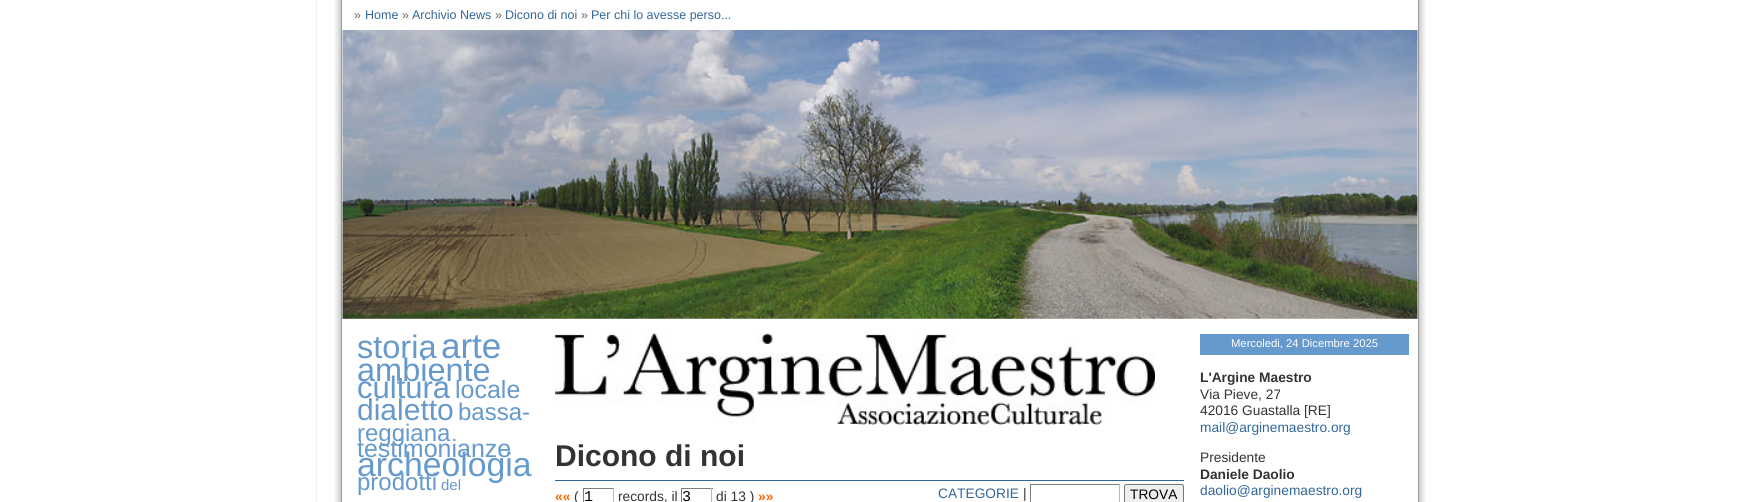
import math
import cairo


def round_path(ctx, x, y, w, h, r):
	ctx.new_sub_path()
	for i, (u, v) in enumerate([(x + w - r, y + h - r), (x + r, y + h - r), (x + r, y + r), (x + w - r, y + r)]):
		ctx.arc(u, v, r, i * math.pi / 2, (i + 1) * math.pi / 2)
	ctx.close_path()

def paste(ctx, path, x, y, w, h):
	ctx.save()
	ctx.set_source_surface(cairo.ImageSurface.create_from_png(path), x, y)
	ctx.rectangle(x, y, w, h)
	ctx.fill()
	ctx.restore()

def draw(ctx):
	ctx.set_source_rgb(1, 1, 1)
	ctx.paint()
	paste(ctx, 'media/1.png', 316, 0, 25, 502)
	paste(ctx, 'media/2.png', 1419, 0, 7, 502)
	ctx.set_source_rgb(0.6, 0.6, 0.6)
	ctx.rectangle(1418, 0, 1, 502)
	ctx.fill()
	ctx.rectangle(341, 0, 1, 502)
	ctx.fill()
	ctx.select_font_face('Liberation Sans')
	ctx.set_font_size(12.5)
	ctx.set_source_rgb(0.4, 0.4, 0.4)
	ctx.move_to(354, 19)
	ctx.show_text('»')
	ctx.set_source_rgb(0.2, 0.4, 0.6)
	ctx.move_to(365, 19)
	ctx.show_text('Home')
	ctx.set_source_rgb(0.4, 0.4, 0.4)
	ctx.move_to(402, 19)
	ctx.show_text('»')
	ctx.set_source_rgb(0.2, 0.4, 0.6)
	ctx.move_to(412, 19)
	ctx.show_text('Archivio News')
	ctx.set_source_rgb(0.4, 0.4, 0.4)
	ctx.move_to(495, 19)
	ctx.show_text('»')
	ctx.set_source_rgb(0.2, 0.4, 0.6)
	ctx.move_to(505, 19)
	ctx.show_text('Dicono di noi')
	ctx.set_source_rgb(0.4, 0.4, 0.4)
	ctx.move_to(581, 19)
	ctx.show_text('»')
	ctx.set_source_rgb(0.2, 0.4, 0.6)
	ctx.move_to(591, 19)
	ctx.show_text('Per chi lo avesse perso...')
	paste(ctx, 'media/3.png', 342, 30, 1076, 289)
	ctx.set_font_size(32.5)
	ctx.set_source_rgb(0.4, 0.6, 0.8)
	ctx.move_to(357, 358)
	ctx.show_text('storia')
	ctx.set_font_size(35)
	ctx.move_to(441, 358)
	ctx.show_text('arte')
	ctx.set_font_size(32.5)
	ctx.move_to(357, 381)
	ctx.show_text('ambiente')
	ctx.set_font_size(31)
	ctx.move_to(357, 398)
	ctx.show_text('cultura')
	ctx.set_font_size(25)
	ctx.move_to(455, 398)
	ctx.show_text('locale')
	ctx.set_font_size(30)
	ctx.move_to(357, 420)
	ctx.show_text('dialetto')
	ctx.set_font_size(24)
	ctx.move_to(458, 420)
	ctx.show_text('bassa-')
	ctx.move_to(357, 441)
	ctx.show_text('reggiana')
	ctx.set_font_size(25)
	ctx.move_to(357, 457)
	ctx.show_text('testimonianze')
	ctx.set_font_size(33.75)
	ctx.move_to(357, 476)
	ctx.show_text('archeologia')
	ctx.set_font_size(24)
	ctx.move_to(357, 490)
	ctx.show_text('prodotti')
	ctx.set_font_size(15)
	ctx.move_to(441, 490)
	ctx.show_text('del')
	paste(ctx, 'media/4.png', 555, 333, 600, 92)
	ctx.select_font_face('Liberation Sans', cairo.FONT_SLANT_NORMAL, cairo.FONT_WEIGHT_BOLD)
	ctx.set_font_size(30)
	ctx.set_source_rgb(0.2, 0.2, 0.2)
	ctx.move_to(555, 466)
	ctx.show_text('Dicono di noi')
	ctx.set_source_rgb(0.2, 0.4, 0.6)
	ctx.rectangle(555, 480, 629, 1)
	ctx.fill()
	ctx.set_font_size(13.75)
	ctx.set_source_rgb(1, 0.4, 0)
	ctx.move_to(555, 501)
	ctx.show_text('««')
	ctx.select_font_face('Liberation Sans')
	ctx.set_source_rgb(0.2, 0.2, 0.2)
	ctx.move_to(574, 501)
	ctx.show_text('(')
	ctx.set_source_rgb(0.49, 0.49, 0.49)
	ctx.rectangle(583, 488, 31, 1)
	ctx.fill()
	ctx.set_source_rgb(0.733, 0.733, 0.733)
	ctx.rectangle(613, 488, 1, 14)
	ctx.fill()
	ctx.set_source_rgb(0.49, 0.49, 0.49)
	ctx.rectangle(583, 488, 1, 14)
	ctx.fill()
	ctx.select_font_face('Liberation Mono')
	ctx.set_font_size(15)
	ctx.set_source_rgb(0, 0, 0)
	ctx.move_to(584, 501)
	ctx.show_text('1')
	ctx.select_font_face('Liberation Sans')
	ctx.set_font_size(13.75)
	ctx.set_source_rgb(0.2, 0.2, 0.2)
	ctx.move_to(618, 501)
	ctx.show_text('records, il')
	ctx.set_source_rgb(0.49, 0.49, 0.49)
	ctx.rectangle(681, 488, 32, 1)
	ctx.fill()
	ctx.set_source_rgb(0.733, 0.733, 0.733)
	ctx.rectangle(711, 488, 1, 14)
	ctx.fill()
	ctx.set_source_rgb(0.49, 0.49, 0.49)
	ctx.rectangle(681, 488, 1, 14)
	ctx.fill()
	ctx.select_font_face('Liberation Mono')
	ctx.set_font_size(15)
	ctx.set_source_rgb(0, 0, 0)
	ctx.move_to(682, 501)
	ctx.show_text('3')
	ctx.select_font_face('Liberation Sans')
	ctx.set_font_size(13.75)
	ctx.set_source_rgb(0.2, 0.2, 0.2)
	ctx.move_to(716, 501)
	ctx.show_text('di 13 )')
	ctx.select_font_face('Liberation Sans', cairo.FONT_SLANT_NORMAL, cairo.FONT_WEIGHT_BOLD)
	ctx.set_source_rgb(1, 0.4, 0)
	ctx.move_to(758, 501)
	ctx.show_text('»»')
	ctx.select_font_face('Liberation Sans')
	ctx.set_source_rgb(0.2, 0.4, 0.6)
	ctx.move_to(938, 498)
	ctx.show_text('CATEGORIE')
	ctx.set_source_rgb(0.2, 0.2, 0.2)
	ctx.move_to(1023, 498)
	ctx.show_text('|')
	ctx.set_source_rgb(0.49, 0.49, 0.49)
	ctx.rectangle(1030, 484, 90, 1)
	ctx.fill()
	ctx.set_source_rgb(0.733, 0.733, 0.733)
	ctx.rectangle(1119, 484, 1, 18)
	ctx.fill()
	ctx.set_source_rgb(0.49, 0.49, 0.49)
	ctx.rectangle(1030, 484, 1, 18)
	ctx.fill()
	ctx.set_source_rgb(0.937, 0.937, 0.937)
	round_path(ctx, 1124.5, 484.5, 59, 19, 2)
	ctx.fill_preserve()
	ctx.set_source_rgb(0.463, 0.463, 0.463)
	ctx.set_line_width(1)
	ctx.stroke()
	ctx.set_source_rgb(0, 0, 0)
	ctx.move_to(1130, 499)
	ctx.show_text('TROVA')
	ctx.set_source_rgb(0.4, 0.6, 0.8)
	ctx.rectangle(1200, 334, 209, 21)
	ctx.fill()
	ctx.set_font_size(11.25)
	ctx.set_source_rgb(1, 1, 1)
	ctx.move_to(1231, 347)
	ctx.show_text('Mercoledi, 24 Dicembre 2025')
	ctx.select_font_face('Liberation Sans', cairo.FONT_SLANT_NORMAL, cairo.FONT_WEIGHT_BOLD)
	ctx.set_font_size(13.75)
	ctx.set_source_rgb(0.2, 0.2, 0.2)
	ctx.move_to(1200, 382)
	ctx.show_text('L\'Argine Maestro')
	ctx.select_font_face('Liberation Sans')
	ctx.move_to(1200, 399)
	ctx.show_text('Via Pieve, 27')
	ctx.move_to(1200, 415)
	ctx.show_text('42016 Guastalla [RE]')
	ctx.set_source_rgb(0.2, 0.4, 0.6)
	ctx.move_to(1200, 432)
	ctx.show_text('mail@arginemaestro.org')
	ctx.set_source_rgb(0.2, 0.2, 0.2)
	ctx.move_to(1200, 462)
	ctx.show_text('Presidente')
	ctx.select_font_face('Liberation Sans', cairo.FONT_SLANT_NORMAL, cairo.FONT_WEIGHT_BOLD)
	ctx.move_to(1200, 479)
	ctx.show_text('Daniele Daolio')
	ctx.select_font_face('Liberation Sans')
	ctx.set_source_rgb(0.2, 0.4, 0.6)
	ctx.move_to(1200, 495)
	ctx.show_text('daolio@arginemaestro.org')


surface = cairo.ImageSurface(cairo.FORMAT_RGB24, 1758, 502)
ctx = cairo.Context(surface)
options = cairo.FontOptions()
options.set_hint_metrics(cairo.HINT_METRICS_OFF)
options.set_hint_style(cairo.HINT_STYLE_NONE)
ctx.set_font_options(options)
ctx.set_miter_limit(4)
draw(ctx)
surface.write_to_png('image.png')
